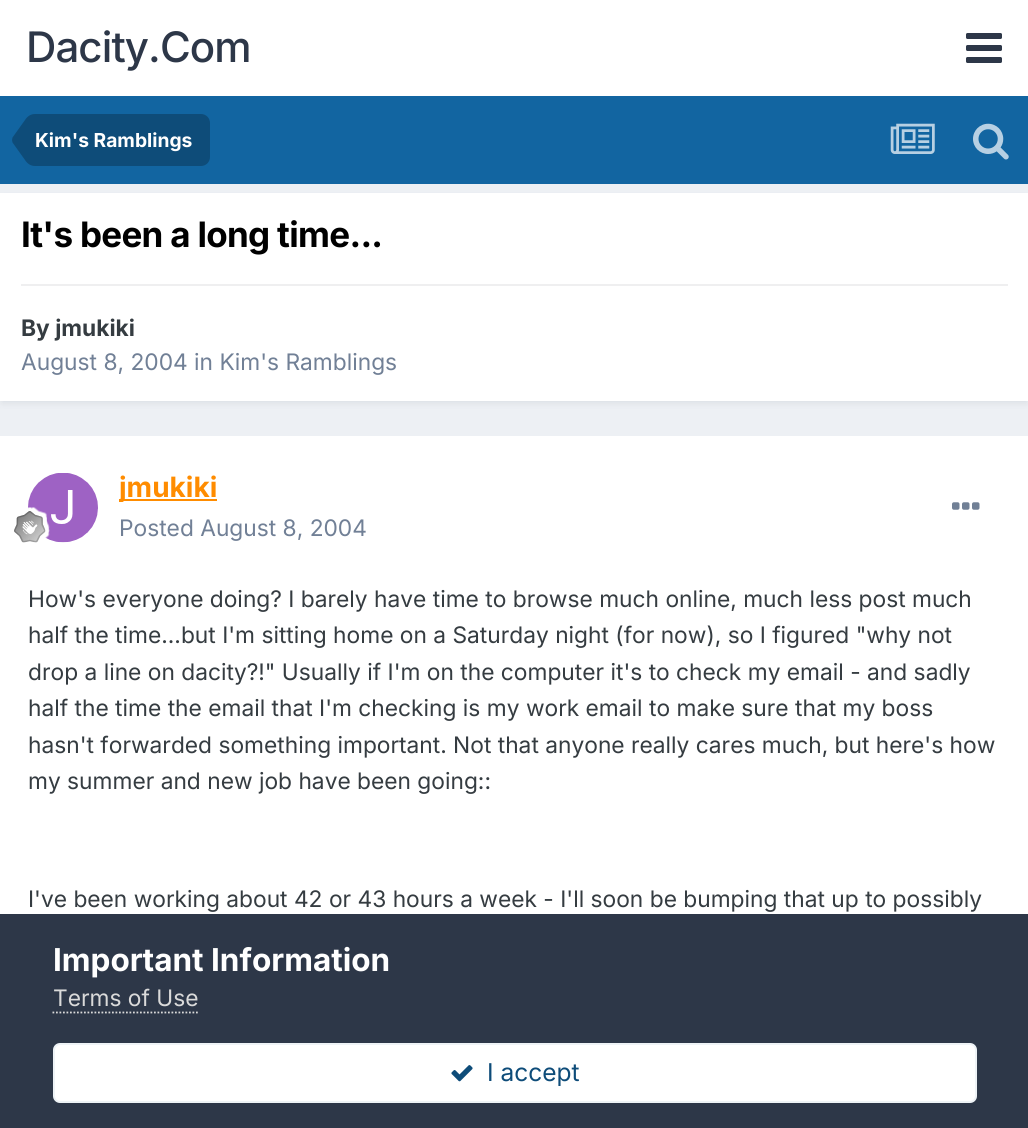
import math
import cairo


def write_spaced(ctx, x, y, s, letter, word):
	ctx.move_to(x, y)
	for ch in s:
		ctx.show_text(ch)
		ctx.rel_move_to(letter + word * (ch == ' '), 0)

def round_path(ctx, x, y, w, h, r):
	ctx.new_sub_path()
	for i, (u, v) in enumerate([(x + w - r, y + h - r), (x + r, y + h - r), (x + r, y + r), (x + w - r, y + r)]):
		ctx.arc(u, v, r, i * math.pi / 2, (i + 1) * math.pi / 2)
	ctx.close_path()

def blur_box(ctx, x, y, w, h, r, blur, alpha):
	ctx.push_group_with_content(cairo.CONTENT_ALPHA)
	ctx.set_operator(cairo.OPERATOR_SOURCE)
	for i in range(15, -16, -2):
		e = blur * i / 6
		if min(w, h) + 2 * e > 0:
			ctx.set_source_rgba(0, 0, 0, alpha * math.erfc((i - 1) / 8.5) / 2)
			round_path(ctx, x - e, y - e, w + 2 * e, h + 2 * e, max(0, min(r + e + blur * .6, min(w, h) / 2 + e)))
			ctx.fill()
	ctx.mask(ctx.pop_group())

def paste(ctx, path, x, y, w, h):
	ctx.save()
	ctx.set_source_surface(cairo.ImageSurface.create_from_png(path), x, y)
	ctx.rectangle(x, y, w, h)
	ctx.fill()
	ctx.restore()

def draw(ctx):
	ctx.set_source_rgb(0.929, 0.941, 0.957)
	ctx.paint()
	ctx.set_source_rgb(1, 1, 1)
	ctx.rectangle(0, 0, 1028, 96)
	ctx.fill()
	ctx.select_font_face('Inter Medium')
	ctx.set_font_size(42)
	ctx.set_source_rgb(0.176, 0.216, 0.282)
	write_spaced(ctx, 26, 62, 'Dacity.Com', -0.9, 0)
	paste(ctx, 'media/1.png', 966, 33, 36, 30)
	ctx.set_source_rgb(0.071, 0.396, 0.631)
	ctx.rectangle(0, 96, 1028, 88)
	ctx.fill()
	ctx.set_source_rgb(0.055, 0.298, 0.475)
	ctx.new_path()
	ctx.move_to(35, 114)
	ctx.line_to(201, 114)
	ctx.curve_to(206, 114, 210, 118, 210, 123)
	ctx.line_to(210, 157)
	ctx.curve_to(210, 162, 206, 166, 201, 166)
	ctx.line_to(35, 166)
	ctx.close_path()
	ctx.fill()
	ctx.new_path()
	ctx.move_to(35, 140)
	ctx.line_to(35, 166)
	ctx.curve_to(31, 166, 27.5, 164, 25, 160)
	ctx.line_to(12.5, 142.5)
	ctx.line_to(12, 140)
	ctx.close_path()
	ctx.move_to(35, 140)
	ctx.line_to(12, 140)
	ctx.line_to(12.5, 137.5)
	ctx.line_to(25, 120)
	ctx.curve_to(27.5, 116, 31, 114, 35, 114)
	ctx.close_path()
	ctx.fill()
	ctx.select_font_face('Inter', cairo.FONT_SLANT_NORMAL, cairo.FONT_WEIGHT_BOLD)
	ctx.set_font_size(19.25)
	ctx.set_source_rgb(1, 1, 1)
	ctx.move_to(35, 147)
	ctx.show_text('Kim\'s Ramblings')
	paste(ctx, 'media/2.png', 890, 123, 45, 31)
	paste(ctx, 'media/3.png', 973, 123, 36, 37)
	ctx.set_source_rgb(0.176, 0.216, 0.282)
	blur_box(ctx, 2, 198, 1025, 205, 0, 3.5, 0.1)
	ctx.set_source_rgb(1, 1, 1)
	ctx.rectangle(0, 193, 1028, 208)
	ctx.fill()
	ctx.set_font_size(35)
	ctx.set_source_rgb(0, 0, 0)
	write_spaced(ctx, 21, 247, 'It\'s been a long time...', -0.7, 0)
	ctx.set_source_rgb(0.937, 0.937, 0.941)
	ctx.rectangle(21, 284, 987, 2)
	ctx.fill()
	ctx.set_font_size(22.75)
	ctx.set_source_rgb(0.208, 0.235, 0.255)
	ctx.move_to(21, 336)
	ctx.show_text('By jmukiki')
	ctx.select_font_face('Inter')
	ctx.set_source_rgb(0.443, 0.502, 0.588)
	ctx.move_to(21, 370)
	ctx.show_text('August 8, 2004 in Kim\'s Ramblings')
	ctx.set_source_rgb(1, 1, 1)
	ctx.rectangle(0, 436, 1028, 478)
	ctx.fill()
	paste(ctx, 'media/4.png', 28, 473, 70, 70)
	paste(ctx, 'media/5.png', 14, 507, 36, 36)
	ctx.set_source_rgb(1, 0.549, 0)
	ctx.rectangle(119, 499, 98, 2)
	ctx.fill()
	ctx.save()
	ctx.rectangle(119, 471, 98, 31)
	ctx.clip()
	ctx.select_font_face('Inter', cairo.FONT_SLANT_NORMAL, cairo.FONT_WEIGHT_BOLD)
	ctx.set_font_size(28)
	ctx.move_to(119, 497)
	ctx.show_text('jmukiki')
	ctx.restore()
	ctx.set_source_rgb(0.443, 0.502, 0.588)
	ctx.move_to(119, 536)
	ctx.show_text('Posted August 8, 2004')
	paste(ctx, 'media/6.png', 952, 502, 28, 8)
	ctx.set_source_rgb(0.208, 0.235, 0.255)
	for x, y, s in [
		(28, 607, 'How\'s everyone doing? I barely have time to browse much online, much less post much'),
		(28, 643, 'half the time...but I\'m sitting home on a Saturday night (for now), so I figured "why not'),
		(28, 680, 'drop a line on dacity?!" Usually if I\'m on the computer it\'s to check my email - and sadly'),
		(28, 716, 'half the time the email that I\'m checking is my work email to make sure that my boss'),
		(28, 753, 'hasn\'t forwarded something important. Not that anyone really cares much, but here\'s how'),
		(28, 789, 'my summer and new job have been going::'),
		(28, 907, 'I\'ve been working about 42 or 43 hours a week - I\'ll soon be bumping that up to possibly'),
	]:
		ctx.move_to(x, y)
		ctx.show_text(s)
	ctx.set_source_rgb(0.176, 0.216, 0.282)
	ctx.rectangle(0, 914, 1028, 214)
	ctx.fill()
	ctx.select_font_face('Inter', cairo.FONT_SLANT_NORMAL, cairo.FONT_WEIGHT_BOLD)
	ctx.set_font_size(31.5)
	ctx.set_source_rgb(1, 1, 1)
	ctx.move_to(53, 971)
	ctx.show_text('Important Information')
	ctx.select_font_face('Inter')
	ctx.set_font_size(22.75)
	ctx.set_source_rgb(0.855, 0.855, 0.855)
	ctx.move_to(53, 1006)
	ctx.show_text('Terms of Use')
	ctx.new_path()
	ctx.move_to(52.5, 1012.5)
	ctx.line_to(198, 1012.5)
	ctx.set_line_width(1.8)
	ctx.set_dash([1.75, 1.75])
	ctx.stroke()
	ctx.set_source_rgb(1, 1, 1)
	round_path(ctx, 53, 1043, 924, 60, 7)
	ctx.fill()
	round_path(ctx, 54, 1044, 922, 58, 6)
	ctx.set_source_rgba(0.055, 0.298, 0.475, 0.07)
	ctx.set_line_width(2)
	ctx.set_dash([])
	ctx.stroke()
	paste(ctx, 'media/7.png', 451, 1065, 22, 17)
	ctx.set_font_size(24.5)
	ctx.set_source_rgb(0.055, 0.298, 0.475)
	ctx.move_to(487, 1081)
	ctx.show_text('I accept')


surface = cairo.ImageSurface(cairo.FORMAT_RGB24, 1028, 1128)
ctx = cairo.Context(surface)
options = cairo.FontOptions()
options.set_hint_metrics(cairo.HINT_METRICS_OFF)
options.set_hint_style(cairo.HINT_STYLE_NONE)
ctx.set_font_options(options)
ctx.set_miter_limit(4)
draw(ctx)
surface.write_to_png('image.png')
